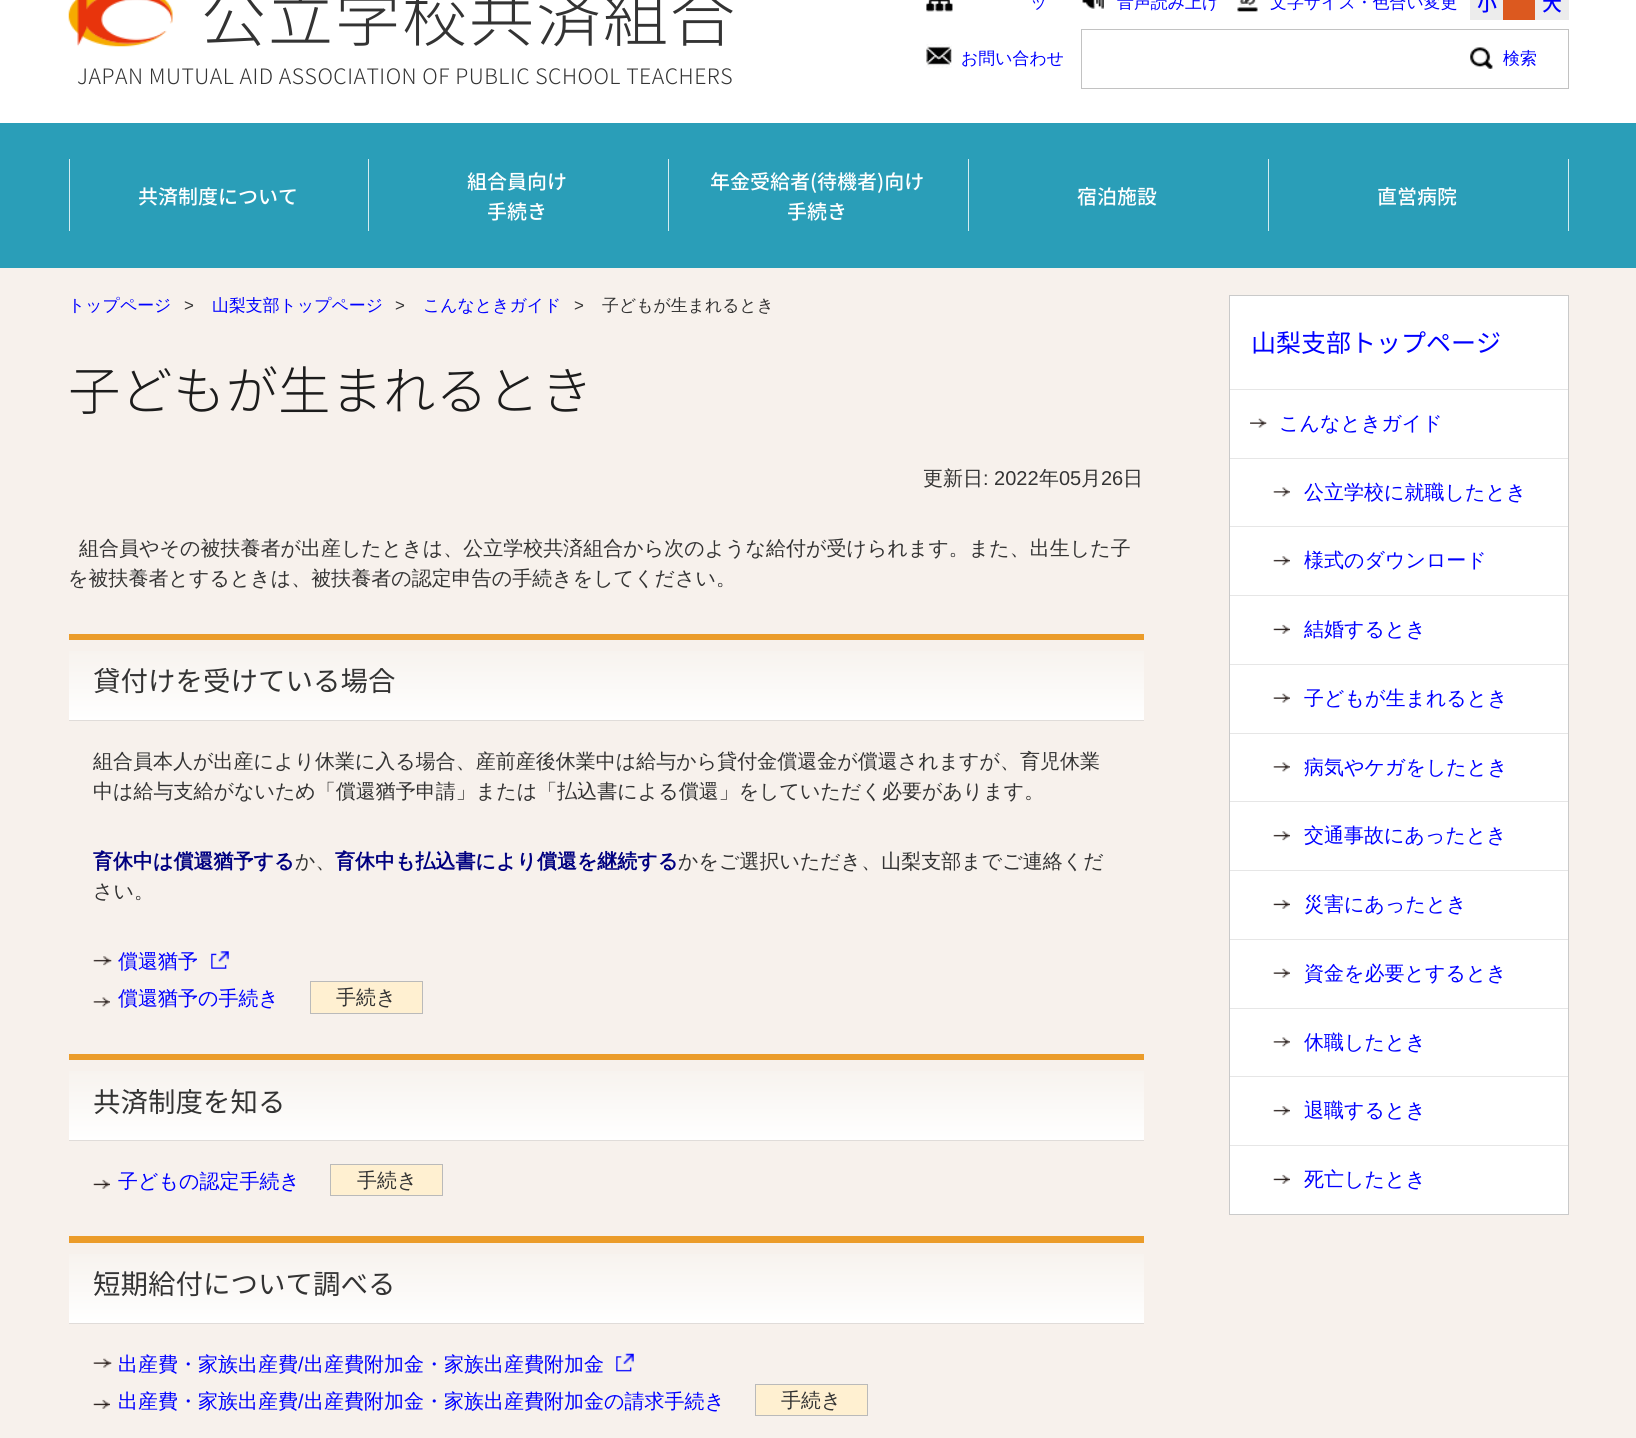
import math
import cairo


def write_spaced(ctx, x, y, s, letter, word):
	ctx.move_to(x, y)
	for ch in s:
		ctx.show_text(ch)
		ctx.rel_move_to(letter + word * (ch == ' '), 0)

def paste(ctx, path, x, y, w, h):
	ctx.save()
	ctx.set_source_surface(cairo.ImageSurface.create_from_png(path), x, y)
	ctx.rectangle(x, y, w, h)
	ctx.fill()
	ctx.restore()

def draw(ctx):
	ctx.set_source_rgb(0.965, 0.945, 0.925)
	ctx.paint()
	ctx.set_source_rgb(1, 1, 1)
	ctx.rectangle(0, 0, 1636, 123)
	ctx.fill()
	paste(ctx, 'media/1.png', 68, 0, 105, 47)
	ctx.select_font_face('Noto Sans JP Light')
	ctx.set_font_size(65)
	ctx.set_source_rgb(0.2, 0.2, 0.2)
	write_spaced(ctx, 201, 41, '公立学校共済組合', 2, 0)
	ctx.set_font_size(21.25)
	write_spaced(ctx, 77, 84, 'JAPAN MUTUAL AID ASSOCIATION OF PUBLIC SCHOOL TEACHERS', 0.5, 0)
	paste(ctx, 'media/2.png', 926, 0, 27, 12)
	ctx.select_font_face('WenQuanYi Zen Hei Medium')
	ctx.set_font_size(16.9)
	ctx.set_source_rgb(0, 0, 1)
	ctx.move_to(1030, 8)
	ctx.show_text('ッ')
	paste(ctx, 'media/3.png', 1082, 0, 22, 9)
	ctx.move_to(1117, 8)
	ctx.show_text('音声読み上げ')
	paste(ctx, 'media/4.png', 1237, 0, 21, 12)
	ctx.move_to(1270, 8)
	ctx.show_text('文字サイズ・色合い変更')
	ctx.set_source_rgb(0.922, 0.922, 0.922)
	ctx.rectangle(1470, 0, 33, 20)
	ctx.fill()
	ctx.select_font_face('Noto Sans JP Medium')
	ctx.set_font_size(20)
	ctx.set_source_rgb(0, 0, 1)
	ctx.move_to(1477, 11)
	ctx.show_text('小')
	ctx.set_source_rgb(0.863, 0.349, 0.122)
	ctx.rectangle(1503, 0, 32, 20)
	ctx.fill()
	ctx.set_source_rgb(0.922, 0.922, 0.922)
	ctx.rectangle(1535, 0, 34, 20)
	ctx.fill()
	ctx.set_source_rgb(0, 0, 1)
	ctx.move_to(1542, 11)
	ctx.show_text('大')
	paste(ctx, 'media/5.png', 926, 44, 26, 24)
	ctx.select_font_face('WenQuanYi Zen Hei Medium')
	ctx.set_font_size(16.9)
	ctx.move_to(961, 64)
	ctx.show_text('お問い合わせ')
	ctx.rectangle(1081.5, 29.5, 487, 59)
	ctx.set_source_rgb(0.761, 0.761, 0.761)
	ctx.set_line_width(1)
	ctx.stroke()
	paste(ctx, 'media/6.png', 1470, 47, 23, 22)
	ctx.set_source_rgb(0, 0, 1)
	ctx.move_to(1503, 64)
	ctx.show_text('検索')
	ctx.set_source_rgb(0.165, 0.62, 0.722)
	ctx.rectangle(0, 123, 1636, 145)
	ctx.fill()
	ctx.set_source_rgb(0.831, 0.925, 0.945)
	ctx.rectangle(368, 159, 1, 72)
	ctx.rectangle(69, 159, 1, 72)
	ctx.fill()
	ctx.select_font_face('Noto Sans JP Medium')
	ctx.set_font_size(20)
	ctx.set_source_rgb(1, 1, 1)
	ctx.move_to(138, 204)
	ctx.show_text('共済制度について')
	ctx.set_source_rgb(0.831, 0.925, 0.945)
	ctx.rectangle(668, 159, 1, 72)
	ctx.fill()
	ctx.set_source_rgb(1, 1, 1)
	ctx.move_to(467, 189)
	ctx.show_text('組合員向け')
	ctx.move_to(487, 219)
	ctx.show_text('手続き')
	ctx.set_source_rgb(0.831, 0.925, 0.945)
	ctx.rectangle(968, 159, 1, 72)
	ctx.fill()
	ctx.set_source_rgb(1, 1, 1)
	ctx.move_to(710, 189)
	ctx.show_text('年金受給者(待機者)向け')
	ctx.move_to(787, 219)
	ctx.show_text('手続き')
	ctx.set_source_rgb(0.831, 0.925, 0.945)
	ctx.rectangle(1268, 159, 1, 72)
	ctx.fill()
	ctx.set_source_rgb(1, 1, 1)
	ctx.move_to(1077, 204)
	ctx.show_text('宿泊施設')
	ctx.set_source_rgb(0.831, 0.925, 0.945)
	ctx.rectangle(1568, 159, 1, 72)
	ctx.fill()
	ctx.set_source_rgb(1, 1, 1)
	ctx.move_to(1377, 204)
	ctx.show_text('直営病院')
	ctx.select_font_face('WenQuanYi Zen Hei Medium')
	ctx.set_font_size(16.9)
	ctx.set_source_rgb(0, 0, 1)
	ctx.move_to(68, 311)
	ctx.show_text('トップページ')
	ctx.select_font_face('Liberation Sans')
	ctx.set_source_rgb(0.2, 0.2, 0.2)
	ctx.move_to(184, 311)
	ctx.show_text('>')
	ctx.select_font_face('WenQuanYi Zen Hei Medium')
	ctx.set_source_rgb(0, 0, 1)
	ctx.move_to(212, 311)
	ctx.show_text('山梨支部トップページ')
	ctx.select_font_face('Liberation Sans')
	ctx.set_source_rgb(0.2, 0.2, 0.2)
	ctx.move_to(395, 311)
	ctx.show_text('>')
	ctx.select_font_face('WenQuanYi Zen Hei Medium')
	ctx.set_source_rgb(0, 0, 1)
	ctx.move_to(423, 311)
	ctx.show_text('こんなときガイド')
	ctx.select_font_face('Liberation Sans')
	ctx.set_source_rgb(0.2, 0.2, 0.2)
	ctx.move_to(574, 311)
	ctx.show_text('>')
	ctx.select_font_face('WenQuanYi Zen Hei Medium')
	ctx.move_to(602, 311)
	ctx.show_text('子どもが生まれるとき')
	ctx.select_font_face('Noto Sans JP Light')
	ctx.set_font_size(52.5)
	ctx.set_source_rgb(0.11, 0.11, 0.11)
	ctx.move_to(68, 410)
	ctx.show_text('子どもが生まれるとき')
	ctx.select_font_face('WenQuanYi Zen Hei Medium')
	ctx.set_font_size(20)
	ctx.set_source_rgb(0.2, 0.2, 0.2)
	ctx.move_to(923, 485)
	ctx.show_text('更新日')
	ctx.select_font_face('Liberation Sans')
	ctx.move_to(983, 485)
	ctx.show_text(': 2022')
	ctx.select_font_face('WenQuanYi Zen Hei Medium')
	ctx.move_to(1039, 485)
	ctx.show_text('年')
	ctx.select_font_face('Liberation Sans')
	ctx.move_to(1059, 485)
	ctx.show_text('05')
	ctx.select_font_face('WenQuanYi Zen Hei Medium')
	ctx.move_to(1081, 485)
	ctx.show_text('月')
	ctx.select_font_face('Liberation Sans')
	ctx.move_to(1101, 485)
	ctx.show_text('26')
	ctx.select_font_face('WenQuanYi Zen Hei Medium')
	for x, y, s in [
		(1123, 485, '日'),
		(79, 555, '組合員やその被扶養者が出産したときは、公立学校共済組合から次のような給付が受けられます。また、出生した子'),
		(68, 585, 'を被扶養者とするときは、被扶養者の認定申告の手続きをしてください。'),
	]:
		ctx.move_to(x, y)
		ctx.show_text(s)
	gradient = cairo.LinearGradient(606, 640, 606, 720)
	gradient.add_color_stop_rgba(0, 0.965, 0.945, 0.925, 1)
	gradient.add_color_stop_rgba(1, 1, 1, 1, 1)
	ctx.set_source(gradient)
	ctx.rectangle(69, 651, 1075, 69)
	ctx.fill()
	ctx.set_source_rgb(0.918, 0.612, 0.165)
	ctx.rectangle(69, 634, 1075, 6)
	ctx.fill()
	ctx.set_source_rgb(0.878, 0.863, 0.851)
	ctx.rectangle(69, 720, 1075, 1)
	ctx.fill()
	ctx.select_font_face('Noto Sans JP')
	ctx.set_font_size(27.5)
	ctx.set_source_rgb(0.2, 0.2, 0.2)
	ctx.move_to(93, 691)
	ctx.show_text('貸付けを受けている場合')
	ctx.select_font_face('WenQuanYi Zen Hei Medium')
	ctx.set_font_size(20)
	ctx.move_to(93, 768)
	ctx.show_text('組合員本人が出産により休業に入る場合、産前産後休業中は給与から貸付金償還金が償還されますが、育児休業')
	ctx.move_to(93, 798)
	ctx.show_text('中は給与支給がないため「償還猶予申請」または「払込書による償還」をしていただく必要があります。')
	ctx.select_font_face('WenQuanYi Zen Hei', cairo.FONT_SLANT_NORMAL, cairo.FONT_WEIGHT_BOLD)
	ctx.set_source_rgb(0, 0, 0.502)
	ctx.move_to(93, 868)
	ctx.show_text('育休中は償還猶予する')
	ctx.select_font_face('WenQuanYi Zen Hei Medium')
	ctx.set_source_rgb(0.2, 0.2, 0.2)
	ctx.move_to(295, 868)
	ctx.show_text('か、')
	ctx.select_font_face('WenQuanYi Zen Hei', cairo.FONT_SLANT_NORMAL, cairo.FONT_WEIGHT_BOLD)
	ctx.set_source_rgb(0, 0, 0.502)
	ctx.move_to(335, 868)
	ctx.show_text('育休中も払込書により償還を継続する')
	ctx.select_font_face('WenQuanYi Zen Hei Medium')
	ctx.set_source_rgb(0.2, 0.2, 0.2)
	ctx.move_to(678, 868)
	ctx.show_text('かをご選択いただき、山梨支部までご連絡くだ')
	ctx.move_to(93, 898)
	ctx.show_text('さい。')
	paste(ctx, 'media/7.png', 93, 956, 19, 10)
	ctx.set_source_rgb(0, 0, 1)
	ctx.move_to(118, 968)
	ctx.show_text('償還猶予')
	paste(ctx, 'media/8.png', 211, 951, 18, 18)
	paste(ctx, 'media/9.png', 93, 997, 17, 10)
	ctx.move_to(118, 1005)
	ctx.show_text('償還猶予の手続き')
	ctx.set_source_rgb(1, 0.941, 0.82)
	ctx.rectangle(310.5, 981.5, 112, 32)
	ctx.fill_preserve()
	ctx.set_source_rgb(0.729, 0.729, 0.729)
	ctx.stroke()
	ctx.set_source_rgb(0.2, 0.2, 0.2)
	ctx.move_to(336, 1004)
	ctx.show_text('手続き')
	gradient = cairo.LinearGradient(606, 1060, 606, 1140)
	gradient.add_color_stop_rgba(0, 0.965, 0.945, 0.925, 1)
	gradient.add_color_stop_rgba(1, 1, 1, 1, 1)
	ctx.set_source(gradient)
	ctx.rectangle(69, 1071, 1075, 69)
	ctx.fill()
	ctx.set_source_rgb(0.918, 0.612, 0.165)
	ctx.rectangle(69, 1054, 1075, 6)
	ctx.fill()
	ctx.set_source_rgb(0.878, 0.863, 0.851)
	ctx.rectangle(69, 1140, 1075, 1)
	ctx.fill()
	ctx.select_font_face('Noto Sans JP')
	ctx.set_font_size(27.5)
	ctx.set_source_rgb(0.2, 0.2, 0.2)
	ctx.move_to(93, 1112)
	ctx.show_text('共済制度を知る')
	paste(ctx, 'media/10.png', 93, 1179, 17, 10)
	ctx.select_font_face('WenQuanYi Zen Hei Medium')
	ctx.set_font_size(20)
	ctx.set_source_rgb(0, 0, 1)
	ctx.move_to(118, 1188)
	ctx.show_text('子どもの認定手続き')
	ctx.set_source_rgb(1, 0.941, 0.82)
	ctx.rectangle(330.5, 1164.5, 112, 31)
	ctx.fill_preserve()
	ctx.set_source_rgb(0.729, 0.729, 0.729)
	ctx.stroke()
	ctx.set_source_rgb(0.2, 0.2, 0.2)
	ctx.move_to(357, 1187)
	ctx.show_text('手続き')
	gradient = cairo.LinearGradient(606, 1243, 606, 1323)
	gradient.add_color_stop_rgba(0, 0.965, 0.945, 0.925, 1)
	gradient.add_color_stop_rgba(1, 1, 1, 1, 1)
	ctx.set_source(gradient)
	ctx.rectangle(69, 1254, 1075, 69)
	ctx.fill()
	ctx.set_source_rgb(0.918, 0.612, 0.165)
	ctx.rectangle(69, 1236, 1075, 7)
	ctx.fill()
	ctx.set_source_rgb(0.878, 0.863, 0.851)
	ctx.rectangle(69, 1323, 1075, 1)
	ctx.fill()
	ctx.select_font_face('Noto Sans JP')
	ctx.set_font_size(27.5)
	ctx.set_source_rgb(0.2, 0.2, 0.2)
	ctx.move_to(93, 1294)
	ctx.show_text('短期給付について調べる')
	paste(ctx, 'media/11.png', 93, 1358, 19, 10)
	ctx.select_font_face('WenQuanYi Zen Hei Medium')
	ctx.set_font_size(20)
	ctx.set_source_rgb(0, 0, 1)
	ctx.move_to(118, 1371)
	ctx.show_text('出産費・家族出産費')
	ctx.select_font_face('Liberation Sans')
	ctx.move_to(298, 1371)
	ctx.show_text('/')
	ctx.select_font_face('WenQuanYi Zen Hei Medium')
	ctx.move_to(304, 1371)
	ctx.show_text('出産費附加金・家族出産費附加金')
	paste(ctx, 'media/12.png', 616, 1353, 18, 19)
	paste(ctx, 'media/10.png', 93, 1399, 17, 10)
	ctx.move_to(118, 1408)
	ctx.show_text('出産費・家族出産費')
	ctx.select_font_face('Liberation Sans')
	ctx.move_to(298, 1408)
	ctx.show_text('/')
	ctx.select_font_face('WenQuanYi Zen Hei Medium')
	ctx.move_to(304, 1408)
	ctx.show_text('出産費附加金・家族出産費附加金の請求手続き')
	ctx.set_source_rgb(1, 0.941, 0.82)
	ctx.rectangle(755.5, 1384.5, 112, 31)
	ctx.fill_preserve()
	ctx.set_source_rgb(0.729, 0.729, 0.729)
	ctx.stroke()
	ctx.set_source_rgb(0.2, 0.2, 0.2)
	ctx.move_to(781, 1407)
	ctx.show_text('手続き')
	ctx.set_source_rgb(1, 1, 1)
	ctx.rectangle(1229.5, 295.5, 339, 919)
	ctx.fill_preserve()
	ctx.set_source_rgb(0.792, 0.792, 0.792)
	ctx.stroke()
	ctx.select_font_face('Noto Sans JP')
	ctx.set_font_size(25)
	ctx.set_source_rgb(0, 0, 1)
	ctx.move_to(1251, 352)
	ctx.show_text('山梨支部トップページ')
	ctx.set_source_rgb(0.902, 0.902, 0.902)
	ctx.rectangle(1230, 389, 338, 1)
	ctx.fill()
	paste(ctx, 'media/13.png', 1250, 418, 17, 10)
	ctx.select_font_face('WenQuanYi Zen Hei Medium')
	ctx.set_font_size(20)
	ctx.set_source_rgb(0, 0, 1)
	ctx.move_to(1279, 430)
	ctx.show_text('こんなときガイド')
	ctx.set_source_rgb(0.902, 0.902, 0.902)
	ctx.rectangle(1230, 458, 338, 1)
	ctx.fill()
	paste(ctx, 'media/14.png', 1273, 487, 17, 10)
	ctx.set_source_rgb(0, 0, 1)
	ctx.move_to(1304, 499)
	ctx.show_text('公立学校に就職したとき')
	ctx.set_source_rgb(0.902, 0.902, 0.902)
	ctx.rectangle(1230, 526, 338, 1)
	ctx.fill()
	paste(ctx, 'media/15.png', 1273, 556, 17, 10)
	ctx.set_source_rgb(0, 0, 1)
	ctx.move_to(1304, 567)
	ctx.show_text('様式のダウンロード')
	ctx.set_source_rgb(0.902, 0.902, 0.902)
	ctx.rectangle(1230, 595, 338, 1)
	ctx.fill()
	paste(ctx, 'media/16.png', 1273, 624, 17, 10)
	ctx.set_source_rgb(0, 0, 1)
	ctx.move_to(1304, 636)
	ctx.show_text('結婚するとき')
	ctx.set_source_rgb(0.902, 0.902, 0.902)
	ctx.rectangle(1230, 664, 338, 1)
	ctx.fill()
	paste(ctx, 'media/17.png', 1273, 693, 17, 10)
	ctx.set_source_rgb(0, 0, 1)
	ctx.move_to(1304, 705)
	ctx.show_text('子どもが生まれるとき')
	ctx.set_source_rgb(0.902, 0.902, 0.902)
	ctx.rectangle(1230, 733, 338, 1)
	ctx.fill()
	paste(ctx, 'media/14.png', 1273, 762, 17, 10)
	ctx.set_source_rgb(0, 0, 1)
	ctx.move_to(1304, 774)
	ctx.show_text('病気やケガをしたとき')
	ctx.set_source_rgb(0.902, 0.902, 0.902)
	ctx.rectangle(1230, 801, 338, 1)
	ctx.fill()
	paste(ctx, 'media/18.png', 1273, 831, 17, 10)
	ctx.set_source_rgb(0, 0, 1)
	ctx.move_to(1304, 842)
	ctx.show_text('交通事故にあったとき')
	ctx.set_source_rgb(0.902, 0.902, 0.902)
	ctx.rectangle(1230, 870, 338, 1)
	ctx.fill()
	paste(ctx, 'media/16.png', 1273, 899, 17, 10)
	ctx.set_source_rgb(0, 0, 1)
	ctx.move_to(1304, 911)
	ctx.show_text('災害にあったとき')
	ctx.set_source_rgb(0.902, 0.902, 0.902)
	ctx.rectangle(1230, 939, 338, 1)
	ctx.fill()
	paste(ctx, 'media/17.png', 1273, 968, 17, 10)
	ctx.set_source_rgb(0, 0, 1)
	ctx.move_to(1304, 980)
	ctx.show_text('資金を必要とするとき')
	ctx.set_source_rgb(0.902, 0.902, 0.902)
	ctx.rectangle(1230, 1008, 338, 1)
	ctx.fill()
	paste(ctx, 'media/14.png', 1273, 1037, 17, 10)
	ctx.set_source_rgb(0, 0, 1)
	ctx.move_to(1304, 1049)
	ctx.show_text('休職したとき')
	ctx.set_source_rgb(0.902, 0.902, 0.902)
	ctx.rectangle(1230, 1076, 338, 1)
	ctx.fill()
	paste(ctx, 'media/18.png', 1273, 1106, 17, 10)
	ctx.set_source_rgb(0, 0, 1)
	ctx.move_to(1304, 1117)
	ctx.show_text('退職するとき')
	ctx.set_source_rgb(0.902, 0.902, 0.902)
	ctx.rectangle(1230, 1145, 338, 1)
	ctx.fill()
	paste(ctx, 'media/16.png', 1273, 1174, 17, 10)
	ctx.set_source_rgb(0, 0, 1)
	ctx.move_to(1304, 1186)
	ctx.show_text('死亡したとき')


surface = cairo.ImageSurface(cairo.FORMAT_RGB24, 1636, 1438)
ctx = cairo.Context(surface)
options = cairo.FontOptions()
options.set_hint_metrics(cairo.HINT_METRICS_OFF)
options.set_hint_style(cairo.HINT_STYLE_NONE)
ctx.set_font_options(options)
ctx.set_miter_limit(4)
draw(ctx)
surface.write_to_png('image.png')
